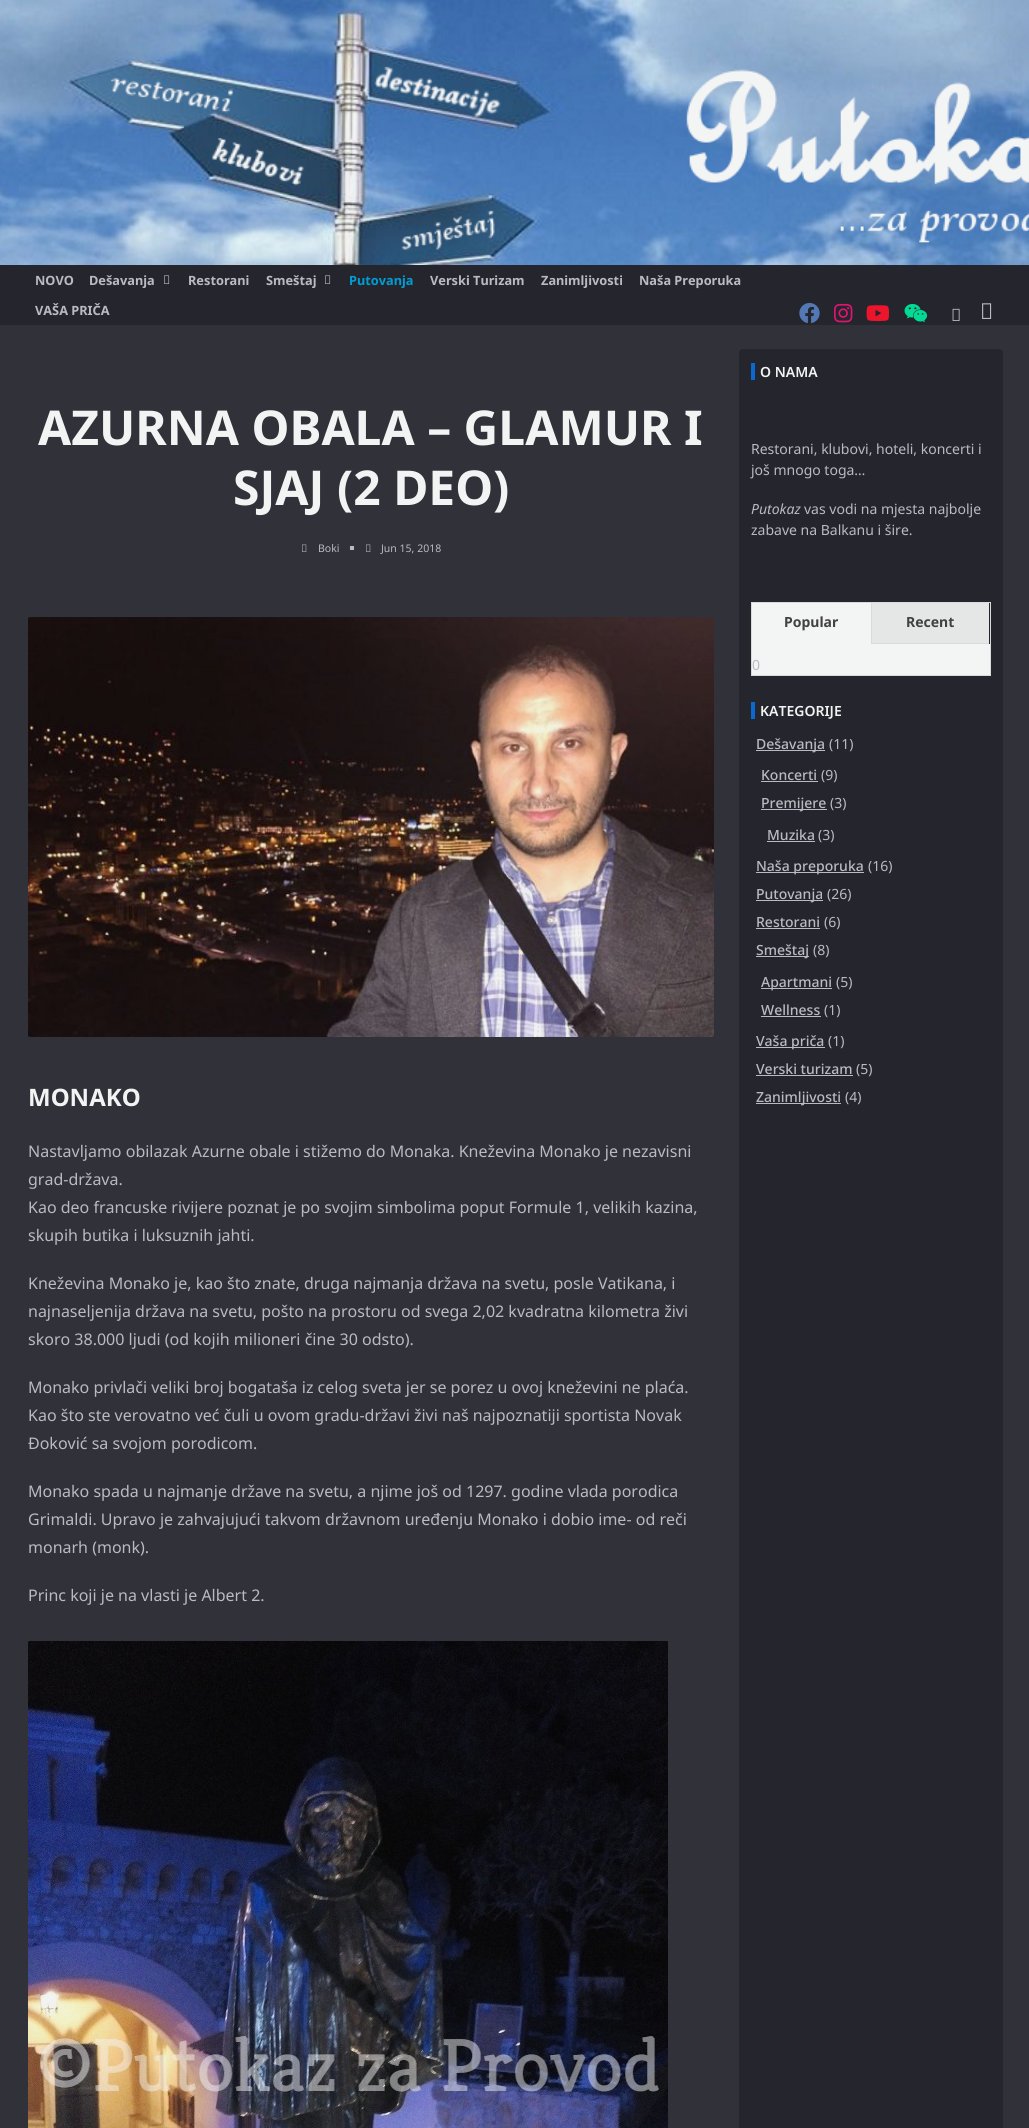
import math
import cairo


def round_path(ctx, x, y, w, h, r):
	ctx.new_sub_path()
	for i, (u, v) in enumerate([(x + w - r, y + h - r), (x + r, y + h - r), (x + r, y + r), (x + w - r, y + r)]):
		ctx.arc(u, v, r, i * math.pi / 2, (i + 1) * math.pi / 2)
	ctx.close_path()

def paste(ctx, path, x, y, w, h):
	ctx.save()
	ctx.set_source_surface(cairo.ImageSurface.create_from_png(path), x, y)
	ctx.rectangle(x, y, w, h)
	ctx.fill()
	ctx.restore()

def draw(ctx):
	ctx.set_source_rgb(0.192, 0.192, 0.224)
	ctx.paint()
	paste(ctx, 'media/1.png', 0, 0, 1029, 265)
	ctx.set_source_rgb(0.145, 0.149, 0.176)
	ctx.rectangle(0, 265, 1029, 60)
	ctx.fill()
	ctx.select_font_face('Noto Sans', cairo.FONT_SLANT_NORMAL, cairo.FONT_WEIGHT_BOLD)
	ctx.set_font_size(12.75)
	ctx.set_source_rgb(0.725, 0.733, 0.753)
	ctx.move_to(35, 285)
	ctx.show_text('NOVO')
	ctx.move_to(89, 285)
	ctx.show_text('Dešavanja')
	paste(ctx, 'media/2.png', 164, 275, 6, 9)
	ctx.move_to(188, 285)
	ctx.show_text('Restorani')
	ctx.move_to(266, 285)
	ctx.show_text('Smeštaj')
	paste(ctx, 'media/2.png', 325, 275, 6, 9)
	ctx.set_source_rgb(0.004, 0.616, 0.824)
	ctx.move_to(349, 285)
	ctx.show_text('Putovanja')
	ctx.set_source_rgb(0.725, 0.733, 0.753)
	for x, y, s in [
		(430, 285, 'Verski Turizam'),
		(541, 285, 'Zanimljivosti'),
		(639, 285, 'Naša Preporuka'),
		(35, 315, 'VAŠA PRIČA'),
	]:
		ctx.move_to(x, y)
		ctx.show_text(s)
	paste(ctx, 'media/3.png', 799, 303, 21, 21)
	paste(ctx, 'media/4.png', 834, 303, 19, 20)
	paste(ctx, 'media/5.png', 866, 305, 23, 16)
	paste(ctx, 'media/6.png', 904, 303, 24, 20)
	paste(ctx, 'media/7.png', 952, 308, 8, 13)
	paste(ctx, 'media/8.png', 982, 303, 10, 16)
	ctx.set_font_size(48)
	ctx.set_source_rgb(0.949, 0.953, 0.953)
	ctx.move_to(38, 445)
	ctx.show_text('AZURNA OBALA – GLAMUR I')
	ctx.move_to(233, 505)
	ctx.show_text('SJAJ (2 DEO)')
	paste(ctx, 'media/9.png', 302, 544, 5, 8)
	ctx.select_font_face('Noto Sans')
	ctx.set_font_size(10.5)
	ctx.set_source_rgb(0.725, 0.733, 0.753)
	ctx.move_to(318, 552)
	ctx.show_text('Boki')
	ctx.rectangle(350, 546, 4, 4)
	ctx.fill()
	paste(ctx, 'media/9.png', 366, 544, 5, 8)
	ctx.move_to(381, 552)
	ctx.show_text('Jun 15, 2018')
	paste(ctx, 'media/10.png', 28, 617, 686, 420)
	ctx.select_font_face('Noto Sans', cairo.FONT_SLANT_NORMAL, cairo.FONT_WEIGHT_BOLD)
	ctx.set_font_size(24)
	ctx.set_source_rgb(0.949, 0.953, 0.953)
	ctx.move_to(28, 1106)
	ctx.show_text('MONAKO')
	ctx.select_font_face('Noto Sans')
	ctx.set_font_size(16)
	ctx.set_source_rgb(0.725, 0.733, 0.753)
	for x, y, s in [
		(28, 1157, 'Nastavljamo obilazak Azurne obale i stižemo do Monaka. Kneževina Monako je nezavisni'),
		(28, 1185, 'grad-država.'),
		(28, 1213, 'Kao deo francuske rivijere poznat je po svojim simbolima poput Formule 1, velikih kazina,'),
		(28, 1241, 'skupih butika i luksuznih jahti.'),
		(28, 1289, 'Kneževina Monako je, kao što znate, druga najmanja država na svetu, posle Vatikana, i'),
		(28, 1317, 'najnaseljenija država na svetu, pošto na prostoru od svega 2,02 kvadratna kilometra živi'),
		(28, 1345, 'skoro 38.000 ljudi (od kojih milioneri čine 30 odsto).'),
		(28, 1393, 'Monako privlači veliki broj bogataša iz celog sveta jer se porez u ovoj kneževini ne plaća.'),
		(28, 1421, 'Kao što ste verovatno već čuli u ovom gradu-državi živi naš najpoznatiji sportista Novak'),
		(28, 1449, 'Đoković sa svojom porodicom.'),
		(28, 1497, 'Monako spada u najmanje države na svetu, a njime još od 1297. godine vlada porodica'),
		(28, 1525, 'Grimaldi. Upravo je zahvajujući takvom državnom uređenju Monako i dobio ime- od reči'),
		(28, 1553, 'monarh (monk).'),
		(28, 1601, 'Princ koji je na vlasti je Albert 2.'),
	]:
		ctx.move_to(x, y)
		ctx.show_text(s)
	paste(ctx, 'media/11.png', 28, 1641, 640, 487)
	ctx.set_source_rgb(0.145, 0.149, 0.176)
	round_path(ctx, 739, 349, 264, 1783, 4)
	ctx.fill()
	ctx.set_source_rgb(0.039, 0.412, 0.816)
	ctx.rectangle(751, 363, 4, 17)
	ctx.fill()
	ctx.select_font_face('Noto Sans SemiBold')
	ctx.set_font_size(14)
	ctx.set_source_rgb(0.949, 0.953, 0.953)
	ctx.move_to(760, 377)
	ctx.show_text('O NAMA')
	ctx.select_font_face('Noto Sans')
	ctx.set_source_rgb(0.725, 0.733, 0.753)
	ctx.move_to(751, 454)
	ctx.show_text('Restorani, klubovi, hoteli, koncerti i')
	ctx.move_to(751, 475)
	ctx.show_text('još mnogo toga…')
	ctx.select_font_face('Noto Sans', cairo.FONT_SLANT_ITALIC)
	ctx.move_to(751, 514)
	ctx.show_text('Putokaz')
	ctx.select_font_face('Noto Sans')
	ctx.move_to(804, 514)
	ctx.show_text('vas vodi na mjesta najbolje')
	ctx.move_to(751, 535)
	ctx.show_text('zabave na Balkanu i šire.')
	ctx.rectangle(751.5, 602.5, 239, 73)
	ctx.set_source_rgb(0.855, 0.855, 0.859)
	ctx.set_line_width(1)
	ctx.stroke()
	ctx.set_source_rgb(0.953, 0.957, 0.957)
	ctx.rectangle(752, 603, 119, 41)
	ctx.fill()
	ctx.select_font_face('Noto Sans', cairo.FONT_SLANT_NORMAL, cairo.FONT_WEIGHT_BOLD)
	ctx.set_source_rgb(0.259, 0.259, 0.263)
	ctx.move_to(784, 627)
	ctx.show_text('Popular')
	ctx.set_source_rgb(0.898, 0.902, 0.902)
	ctx.rectangle(872, 603, 117, 40)
	ctx.fill()
	ctx.set_source_rgb(0.855, 0.855, 0.859)
	ctx.rectangle(871, 643, 118, 1)
	ctx.rectangle(871, 603, 1, 41)
	ctx.fill()
	ctx.set_source_rgb(0.259, 0.259, 0.263)
	ctx.move_to(906, 627)
	ctx.show_text('Recent')
	ctx.set_source_rgb(0.953, 0.957, 0.957)
	ctx.rectangle(752, 644, 238, 31)
	ctx.fill()
	ctx.select_font_face('Noto Sans')
	ctx.set_source_rgb(0.725, 0.733, 0.753)
	ctx.move_to(752, 670)
	ctx.show_text('0')
	ctx.set_source_rgb(0.039, 0.412, 0.816)
	ctx.rectangle(751, 702, 4, 17)
	ctx.fill()
	ctx.select_font_face('Noto Sans SemiBold')
	ctx.set_source_rgb(0.949, 0.953, 0.953)
	ctx.move_to(760, 716)
	ctx.show_text('KATEGORIJE')
	ctx.set_source_rgb(0.725, 0.733, 0.753)
	ctx.rectangle(756, 750, 69, 1)
	ctx.fill()
	ctx.select_font_face('Noto Sans Medium')
	ctx.move_to(756, 749)
	ctx.show_text('Dešavanja')
	ctx.select_font_face('Noto Sans')
	ctx.move_to(829, 749)
	ctx.show_text('(11)')
	ctx.select_font_face('Noto Sans Medium')
	ctx.move_to(761, 780)
	ctx.show_text('Koncerti')
	ctx.rectangle(761, 781, 57, 1)
	ctx.fill()
	ctx.select_font_face('Noto Sans')
	ctx.move_to(821, 780)
	ctx.show_text('(9)')
	ctx.rectangle(761, 809, 66, 1)
	ctx.fill()
	ctx.select_font_face('Noto Sans Medium')
	ctx.move_to(761, 808)
	ctx.show_text('Premijere')
	ctx.select_font_face('Noto Sans')
	ctx.move_to(830, 808)
	ctx.show_text('(3)')
	ctx.select_font_face('Noto Sans Medium')
	ctx.move_to(767, 840)
	ctx.show_text('Muzika')
	ctx.rectangle(767, 841, 48, 1)
	ctx.fill()
	ctx.select_font_face('Noto Sans')
	ctx.move_to(818, 840)
	ctx.show_text('(3)')
	ctx.rectangle(756, 872, 108, 1)
	ctx.fill()
	ctx.select_font_face('Noto Sans Medium')
	ctx.move_to(756, 871)
	ctx.show_text('Naša preporuka')
	ctx.select_font_face('Noto Sans')
	ctx.move_to(868, 871)
	ctx.show_text('(16)')
	ctx.rectangle(756, 900, 67, 1)
	ctx.fill()
	ctx.select_font_face('Noto Sans Medium')
	ctx.move_to(756, 899)
	ctx.show_text('Putovanja')
	ctx.select_font_face('Noto Sans')
	ctx.move_to(827, 899)
	ctx.show_text('(26)')
	ctx.select_font_face('Noto Sans Medium')
	ctx.move_to(756, 927)
	ctx.show_text('Restorani')
	ctx.rectangle(756, 928, 64, 1)
	ctx.fill()
	ctx.select_font_face('Noto Sans')
	ctx.move_to(824, 927)
	ctx.show_text('(6)')
	ctx.rectangle(756, 956, 53, 1)
	ctx.fill()
	ctx.select_font_face('Noto Sans Medium')
	ctx.move_to(756, 955)
	ctx.show_text('Smeštaj')
	ctx.select_font_face('Noto Sans')
	ctx.move_to(813, 955)
	ctx.show_text('(8)')
	ctx.rectangle(761, 988, 71, 1)
	ctx.fill()
	ctx.select_font_face('Noto Sans Medium')
	ctx.move_to(761, 987)
	ctx.show_text('Apartmani')
	ctx.select_font_face('Noto Sans')
	ctx.move_to(836, 987)
	ctx.show_text('(5)')
	ctx.select_font_face('Noto Sans Medium')
	ctx.move_to(761, 1015)
	ctx.show_text('Wellness')
	ctx.rectangle(761, 1016, 60, 1)
	ctx.fill()
	ctx.select_font_face('Noto Sans')
	ctx.move_to(824, 1015)
	ctx.show_text('(1)')
	ctx.rectangle(756, 1047, 69, 1)
	ctx.fill()
	ctx.select_font_face('Noto Sans Medium')
	ctx.move_to(756, 1046)
	ctx.show_text('Vaša priča')
	ctx.select_font_face('Noto Sans')
	ctx.move_to(828, 1046)
	ctx.show_text('(1)')
	ctx.select_font_face('Noto Sans Medium')
	ctx.move_to(756, 1074)
	ctx.show_text('Verski turizam')
	ctx.rectangle(756, 1075, 97, 1)
	ctx.fill()
	ctx.select_font_face('Noto Sans')
	ctx.move_to(856, 1074)
	ctx.show_text('(5)')
	ctx.rectangle(756, 1103, 85, 1)
	ctx.fill()
	ctx.select_font_face('Noto Sans Medium')
	ctx.move_to(756, 1102)
	ctx.show_text('Zanimljivosti')
	ctx.select_font_face('Noto Sans')
	ctx.move_to(845, 1102)
	ctx.show_text('(4)')


surface = cairo.ImageSurface(cairo.FORMAT_RGB24, 1029, 2128)
ctx = cairo.Context(surface)
options = cairo.FontOptions()
options.set_hint_metrics(cairo.HINT_METRICS_OFF)
options.set_hint_style(cairo.HINT_STYLE_NONE)
ctx.set_font_options(options)
ctx.set_miter_limit(4)
draw(ctx)
surface.write_to_png('image.png')
